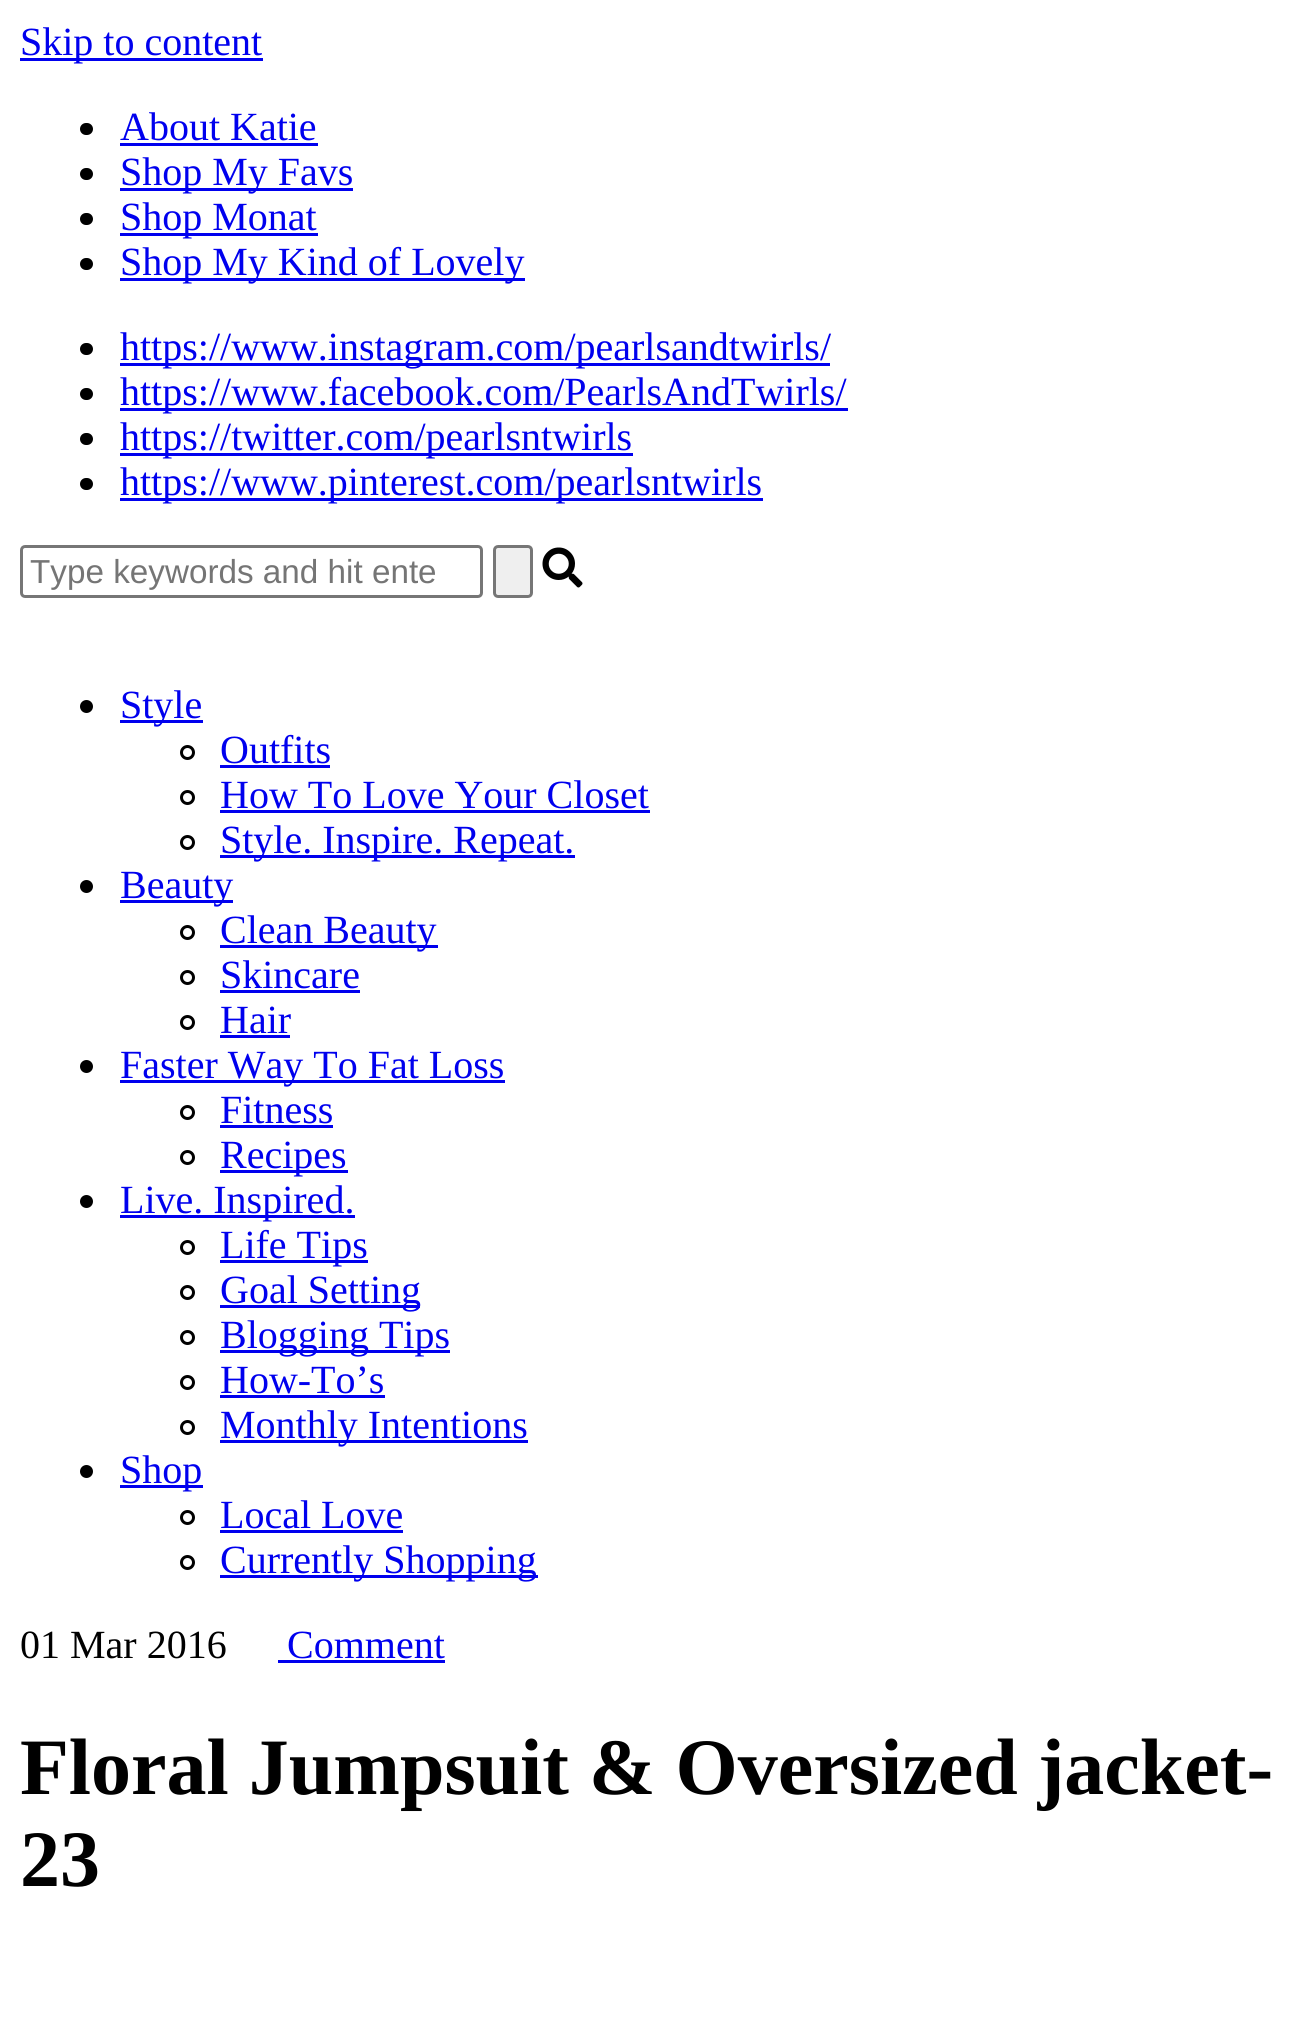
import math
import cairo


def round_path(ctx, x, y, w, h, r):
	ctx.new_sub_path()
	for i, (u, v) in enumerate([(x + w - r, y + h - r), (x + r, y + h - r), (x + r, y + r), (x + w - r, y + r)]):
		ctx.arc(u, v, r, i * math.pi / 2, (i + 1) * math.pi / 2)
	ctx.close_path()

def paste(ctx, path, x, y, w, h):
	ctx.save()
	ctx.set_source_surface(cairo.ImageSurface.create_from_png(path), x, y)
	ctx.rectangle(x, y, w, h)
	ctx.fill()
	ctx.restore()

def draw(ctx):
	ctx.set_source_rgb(1, 1, 1)
	ctx.paint()
	ctx.set_source_rgb(0, 0, 0.933)
	ctx.rectangle(20, 58, 243, 3)
	ctx.fill()
	ctx.select_font_face('Liberation Serif')
	ctx.set_font_size(40)
	ctx.move_to(20, 55)
	ctx.show_text('Skip to content')
	ctx.set_source_rgb(0, 0, 0)
	round_path(ctx, 80, 123, 13, 12, 6)
	ctx.fill()
	ctx.set_source_rgb(0, 0, 0.933)
	ctx.move_to(120, 140)
	ctx.show_text('About Katie')
	ctx.rectangle(120, 143, 198, 3)
	ctx.fill()
	ctx.set_source_rgb(0, 0, 0)
	round_path(ctx, 80, 168, 13, 12, 6)
	ctx.fill()
	ctx.set_source_rgb(0, 0, 0.933)
	ctx.rectangle(120, 188, 233, 3)
	ctx.fill()
	ctx.move_to(120, 185)
	ctx.show_text('Shop My Favs')
	ctx.set_source_rgb(0, 0, 0)
	round_path(ctx, 80, 213, 13, 12, 6)
	ctx.fill()
	ctx.set_source_rgb(0, 0, 0.933)
	ctx.rectangle(120, 233, 198, 3)
	ctx.fill()
	ctx.move_to(120, 230)
	ctx.show_text('Shop Monat')
	ctx.set_source_rgb(0, 0, 0)
	round_path(ctx, 80, 258, 13, 12, 6)
	ctx.fill()
	ctx.set_source_rgb(0, 0, 0.933)
	ctx.rectangle(120, 278, 405, 3)
	ctx.fill()
	ctx.move_to(120, 275)
	ctx.show_text('Shop My Kind of Lovely')
	ctx.set_source_rgb(0, 0, 0)
	round_path(ctx, 80, 343, 13, 12, 6)
	ctx.fill()
	ctx.set_source_rgb(0, 0, 0.933)
	ctx.rectangle(120, 363, 710, 3)
	ctx.fill()
	ctx.move_to(120, 360)
	ctx.show_text('https://www.instagram.com/pearlsandtwirls/')
	ctx.set_source_rgb(0, 0, 0)
	round_path(ctx, 80, 388, 13, 12, 6)
	ctx.fill()
	ctx.set_source_rgb(0, 0, 0.933)
	ctx.rectangle(120, 408, 728, 3)
	ctx.fill()
	ctx.move_to(120, 405)
	ctx.show_text('https://www.facebook.com/PearlsAndTwirls/')
	ctx.set_source_rgb(0, 0, 0)
	round_path(ctx, 80, 433, 13, 12, 6)
	ctx.fill()
	ctx.set_source_rgb(0, 0, 0.933)
	ctx.rectangle(120, 453, 513, 3)
	ctx.fill()
	ctx.move_to(120, 450)
	ctx.show_text('https://twitter.com/pearlsntwirls')
	ctx.set_source_rgb(0, 0, 0)
	round_path(ctx, 80, 478, 13, 12, 6)
	ctx.fill()
	ctx.set_source_rgb(0, 0, 0.933)
	ctx.rectangle(120, 498, 643, 3)
	ctx.fill()
	ctx.move_to(120, 495)
	ctx.show_text('https://www.pinterest.com/pearlsntwirls')
	round_path(ctx, 21.5, 546.5, 460, 50, 3.5)
	ctx.set_source_rgb(0.463, 0.463, 0.463)
	ctx.set_line_width(3)
	ctx.stroke()
	ctx.select_font_face('Liberation Sans')
	ctx.set_font_size(33.25)
	ctx.set_source_rgb(0.459, 0.459, 0.459)
	ctx.move_to(30, 583)
	ctx.show_text('Type keywords and hit ente')
	ctx.set_source_rgb(0.937, 0.937, 0.937)
	round_path(ctx, 494.5, 546.5, 37, 50, 3.5)
	ctx.fill_preserve()
	ctx.set_source_rgb(0.463, 0.463, 0.463)
	ctx.stroke()
	paste(ctx, 'media/1.png', 542, 547, 41, 41)
	ctx.set_source_rgb(0, 0, 0)
	ctx.arc(86.5, 706.5, 6.5, 0, 2 * math.pi)
	ctx.fill()
	ctx.set_source_rgb(0, 0, 0.933)
	ctx.rectangle(120, 720, 83, 3)
	ctx.fill()
	ctx.select_font_face('Liberation Serif')
	ctx.set_font_size(40)
	ctx.move_to(120, 718)
	ctx.show_text('Style')
	ctx.new_path()
	ctx.arc(187.5, 752.5, 6, 0, 2 * math.pi)
	ctx.set_source_rgb(0, 0, 0)
	ctx.stroke()
	ctx.set_source_rgb(0, 0, 0.933)
	ctx.move_to(220, 763)
	ctx.show_text('Outfits')
	ctx.rectangle(220, 765, 110, 3)
	ctx.fill()
	ctx.arc(187.5, 797.5, 6, 0, 2 * math.pi)
	ctx.set_source_rgb(0, 0, 0)
	ctx.stroke()
	ctx.set_source_rgb(0, 0, 0.933)
	ctx.move_to(220, 808)
	ctx.show_text('How To Love Your Closet')
	ctx.rectangle(220, 810, 430, 3)
	ctx.fill()
	ctx.arc(187.5, 842.5, 6, 0, 2 * math.pi)
	ctx.set_source_rgb(0, 0, 0)
	ctx.stroke()
	ctx.set_source_rgb(0, 0, 0.933)
	ctx.rectangle(220, 855, 355, 3)
	ctx.fill()
	ctx.move_to(220, 853)
	ctx.show_text('Style. Inspire. Repeat.')
	ctx.set_source_rgb(0, 0, 0)
	ctx.new_path()
	ctx.arc(86.5, 886.5, 6.5, 0, 2 * math.pi)
	ctx.fill()
	ctx.set_source_rgb(0, 0, 0.933)
	ctx.rectangle(120, 900, 113, 3)
	ctx.fill()
	ctx.move_to(120, 898)
	ctx.show_text('Beauty')
	ctx.new_path()
	ctx.arc(187.5, 932.5, 6, 0, 2 * math.pi)
	ctx.set_source_rgb(0, 0, 0)
	ctx.stroke()
	ctx.set_source_rgb(0, 0, 0.933)
	ctx.rectangle(220, 945, 218, 3)
	ctx.fill()
	ctx.move_to(220, 943)
	ctx.show_text('Clean Beauty')
	ctx.new_path()
	ctx.arc(187.5, 977.5, 6, 0, 2 * math.pi)
	ctx.set_source_rgb(0, 0, 0)
	ctx.stroke()
	ctx.set_source_rgb(0, 0, 0.933)
	ctx.move_to(220, 988)
	ctx.show_text('Skincare')
	ctx.rectangle(220, 990, 140, 3)
	ctx.fill()
	ctx.arc(187.5, 1022.5, 6, 0, 2 * math.pi)
	ctx.set_source_rgb(0, 0, 0)
	ctx.stroke()
	ctx.set_source_rgb(0, 0, 0.933)
	ctx.move_to(220, 1033)
	ctx.show_text('Hair')
	ctx.rectangle(220, 1035, 70, 3)
	ctx.fill()
	ctx.set_source_rgb(0, 0, 0)
	ctx.arc(86.5, 1066.5, 6.5, 0, 2 * math.pi)
	ctx.fill()
	ctx.set_source_rgb(0, 0, 0.933)
	ctx.rectangle(120, 1080, 385, 3)
	ctx.fill()
	ctx.move_to(120, 1078)
	ctx.show_text('Faster Way To Fat Loss')
	ctx.new_path()
	ctx.arc(187.5, 1112.5, 6, 0, 2 * math.pi)
	ctx.set_source_rgb(0, 0, 0)
	ctx.stroke()
	ctx.set_source_rgb(0, 0, 0.933)
	ctx.move_to(220, 1123)
	ctx.show_text('Fitness')
	ctx.rectangle(220, 1125, 113, 3)
	ctx.fill()
	ctx.arc(187.5, 1157.5, 6, 0, 2 * math.pi)
	ctx.set_source_rgb(0, 0, 0)
	ctx.stroke()
	ctx.set_source_rgb(0, 0, 0.933)
	ctx.rectangle(220, 1170, 128, 3)
	ctx.fill()
	ctx.move_to(220, 1168)
	ctx.show_text('Recipes')
	ctx.set_source_rgb(0, 0, 0)
	ctx.new_path()
	ctx.arc(86.5, 1201.5, 6.5, 0, 2 * math.pi)
	ctx.fill()
	ctx.set_source_rgb(0, 0, 0.933)
	ctx.rectangle(120, 1215, 235, 3)
	ctx.fill()
	ctx.move_to(120, 1213)
	ctx.show_text('Live. Inspired.')
	ctx.new_path()
	ctx.arc(187.5, 1247.5, 6, 0, 2 * math.pi)
	ctx.set_source_rgb(0, 0, 0)
	ctx.stroke()
	ctx.set_source_rgb(0, 0, 0.933)
	ctx.rectangle(220, 1260, 148, 3)
	ctx.fill()
	ctx.move_to(220, 1258)
	ctx.show_text('Life Tips')
	ctx.new_path()
	ctx.arc(187.5, 1292.5, 6, 0, 2 * math.pi)
	ctx.set_source_rgb(0, 0, 0)
	ctx.stroke()
	ctx.set_source_rgb(0, 0, 0.933)
	ctx.rectangle(220, 1305, 200, 3)
	ctx.fill()
	ctx.move_to(220, 1303)
	ctx.show_text('Goal Setting')
	ctx.new_path()
	ctx.arc(187.5, 1337.5, 6, 0, 2 * math.pi)
	ctx.set_source_rgb(0, 0, 0)
	ctx.stroke()
	ctx.set_source_rgb(0, 0, 0.933)
	ctx.rectangle(220, 1350, 230, 3)
	ctx.fill()
	ctx.move_to(220, 1348)
	ctx.show_text('Blogging Tips')
	ctx.new_path()
	ctx.arc(187.5, 1382.5, 6, 0, 2 * math.pi)
	ctx.set_source_rgb(0, 0, 0)
	ctx.stroke()
	ctx.set_source_rgb(0, 0, 0.933)
	ctx.move_to(220, 1393)
	ctx.show_text('How-To’s')
	ctx.rectangle(220, 1395, 165, 3)
	ctx.fill()
	ctx.arc(187.5, 1427.5, 6, 0, 2 * math.pi)
	ctx.set_source_rgb(0, 0, 0)
	ctx.stroke()
	ctx.set_source_rgb(0, 0, 0.933)
	ctx.rectangle(220, 1440, 308, 3)
	ctx.fill()
	ctx.move_to(220, 1438)
	ctx.show_text('Monthly Intentions')
	ctx.set_source_rgb(0, 0, 0)
	ctx.new_path()
	ctx.arc(86.5, 1471.5, 6.5, 0, 2 * math.pi)
	ctx.fill()
	ctx.set_source_rgb(0, 0, 0.933)
	ctx.rectangle(120, 1485, 83, 3)
	ctx.fill()
	ctx.move_to(120, 1483)
	ctx.show_text('Shop')
	ctx.new_path()
	ctx.arc(187.5, 1517.5, 6, 0, 2 * math.pi)
	ctx.set_source_rgb(0, 0, 0)
	ctx.stroke()
	ctx.set_source_rgb(0, 0, 0.933)
	ctx.move_to(220, 1528)
	ctx.show_text('Local Love')
	ctx.rectangle(220, 1530, 183, 3)
	ctx.fill()
	ctx.arc(187.5, 1562.5, 6, 0, 2 * math.pi)
	ctx.set_source_rgb(0, 0, 0)
	ctx.stroke()
	ctx.set_source_rgb(0, 0, 0.933)
	ctx.rectangle(220, 1575, 318, 3)
	ctx.fill()
	ctx.move_to(220, 1573)
	ctx.show_text('Currently Shopping')
	ctx.set_source_rgb(0, 0, 0)
	ctx.move_to(20, 1658)
	ctx.show_text('01 Mar 2016')
	ctx.set_source_rgb(0, 0, 0.933)
	ctx.move_to(287, 1658)
	ctx.show_text('Comment')
	ctx.rectangle(278, 1660, 167, 3)
	ctx.fill()
	ctx.select_font_face('Liberation Serif', cairo.FONT_SLANT_NORMAL, cairo.FONT_WEIGHT_BOLD)
	ctx.set_font_size(80)
	ctx.set_source_rgb(0, 0, 0)
	ctx.move_to(20, 1794)
	ctx.show_text('Floral Jumpsuit & Oversized jacket-')
	ctx.move_to(20, 1886)
	ctx.show_text('23')


surface = cairo.ImageSurface(cairo.FORMAT_RGB24, 1309, 2030)
ctx = cairo.Context(surface)
options = cairo.FontOptions()
options.set_hint_metrics(cairo.HINT_METRICS_OFF)
options.set_hint_style(cairo.HINT_STYLE_NONE)
ctx.set_font_options(options)
ctx.set_miter_limit(4)
draw(ctx)
surface.write_to_png('image.png')
